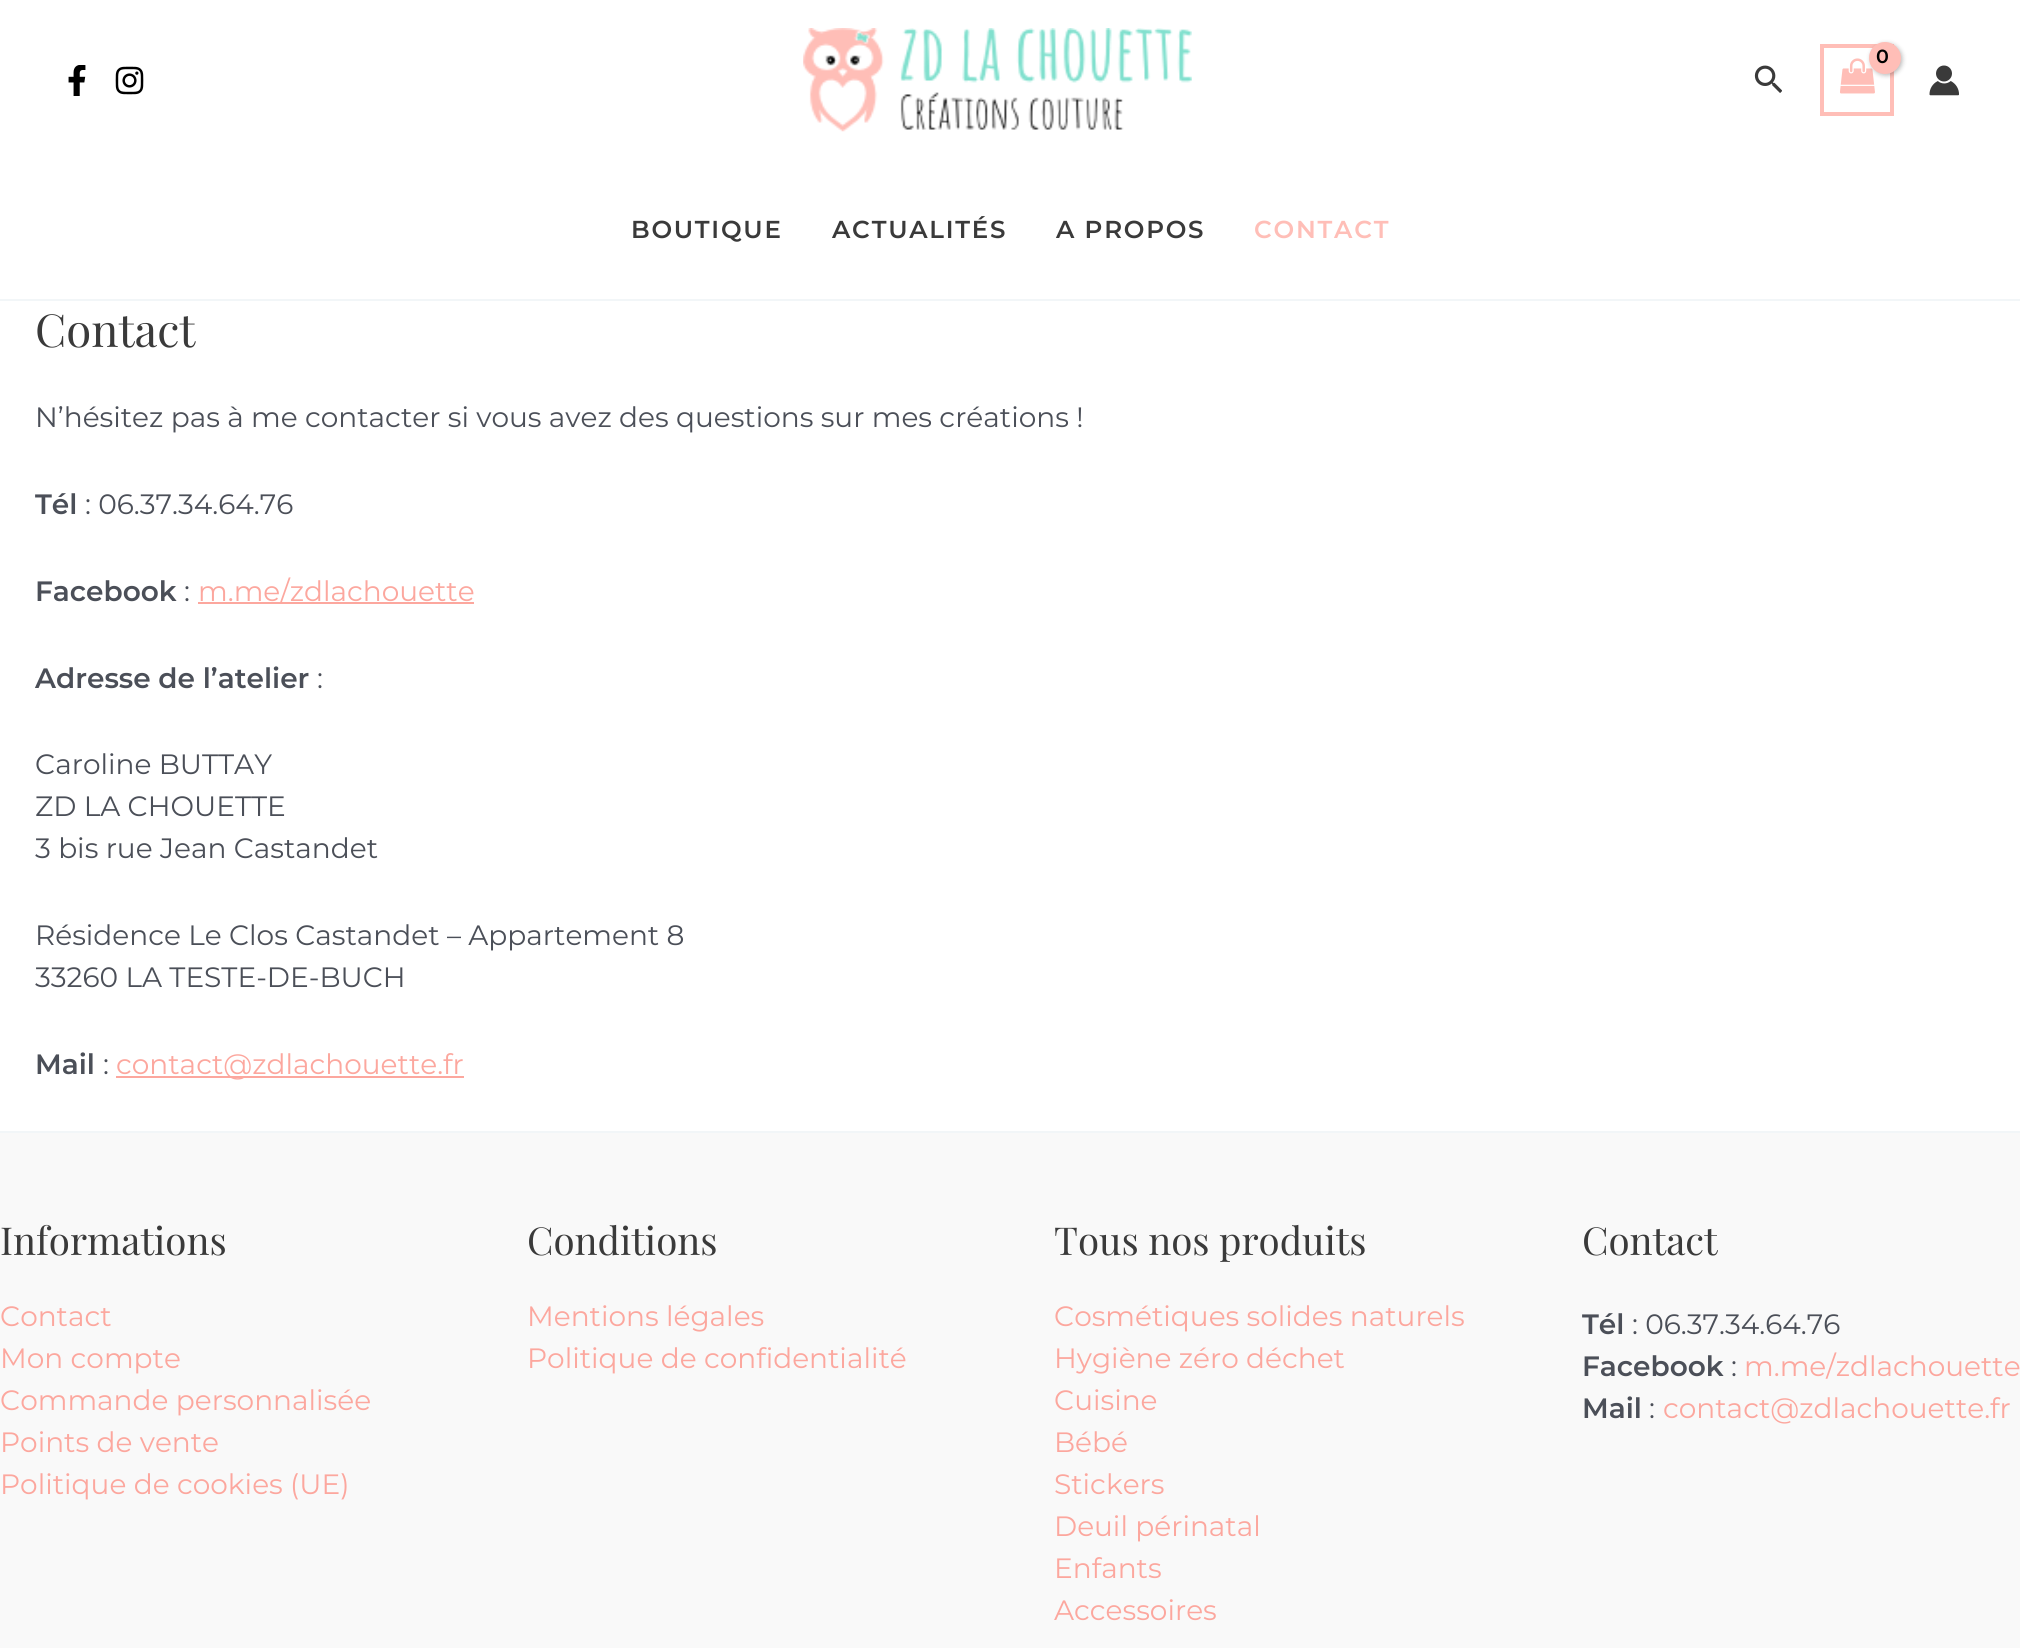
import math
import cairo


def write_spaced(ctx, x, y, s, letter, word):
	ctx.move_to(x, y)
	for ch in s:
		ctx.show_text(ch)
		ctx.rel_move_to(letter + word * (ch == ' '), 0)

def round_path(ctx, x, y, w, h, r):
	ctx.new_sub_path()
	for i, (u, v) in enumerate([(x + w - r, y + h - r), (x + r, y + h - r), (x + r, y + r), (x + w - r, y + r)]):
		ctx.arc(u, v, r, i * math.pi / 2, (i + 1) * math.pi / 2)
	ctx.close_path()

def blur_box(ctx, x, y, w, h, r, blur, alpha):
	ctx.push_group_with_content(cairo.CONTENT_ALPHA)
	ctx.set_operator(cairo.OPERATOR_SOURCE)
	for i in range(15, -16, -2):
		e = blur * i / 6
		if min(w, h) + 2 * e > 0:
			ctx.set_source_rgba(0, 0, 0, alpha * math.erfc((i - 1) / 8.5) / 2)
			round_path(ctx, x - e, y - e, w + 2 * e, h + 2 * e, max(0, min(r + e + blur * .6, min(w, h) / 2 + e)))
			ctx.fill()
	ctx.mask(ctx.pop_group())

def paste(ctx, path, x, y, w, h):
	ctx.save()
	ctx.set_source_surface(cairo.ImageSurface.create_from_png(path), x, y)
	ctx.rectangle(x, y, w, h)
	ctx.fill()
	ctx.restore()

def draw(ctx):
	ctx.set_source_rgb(1, 1, 1)
	ctx.paint()
	paste(ctx, 'media/1.png', 803, 28, 389, 104)
	ctx.rectangle(1822, 46, 70, 68)
	ctx.set_source_rgb(1, 0.745, 0.718)
	ctx.set_line_width(4)
	ctx.stroke()
	paste(ctx, 'media/2.png', 1840, 58, 35, 36)
	ctx.set_source_rgb(0, 0, 0)
	blur_box(ctx, 1871, 44, 31, 31, 15.5, 2.5, 0.3)
	ctx.set_source_rgb(1, 0.745, 0.718)
	ctx.arc(1885, 58, 16, 0, 2 * math.pi)
	ctx.fill()
	ctx.select_font_face('Montserrat SemiBold')
	ctx.set_font_size(19)
	ctx.set_source_rgb(0, 0, 0)
	write_spaced(ctx, 1876, 63, '0', -1, 0)
	paste(ctx, 'media/3.png', 1754, 65, 28, 28)
	paste(ctx, 'media/4.png', 1929, 65, 30, 31)
	paste(ctx, 'media/5.png', 68, 65, 18, 31)
	paste(ctx, 'media/6.png', 115, 66, 29, 29)
	ctx.set_source_rgb(0.949, 0.961, 0.969)
	ctx.rectangle(0, 299, 2020, 2)
	ctx.fill()
	ctx.set_font_size(24.5)
	ctx.set_source_rgb(0.227, 0.227, 0.227)
	for x, y, s in [
		(631, 238, 'BOUTIQUE'),
		(832, 238, 'ACTUALITÉS'),
		(1056, 238, 'A PROPOS'),
	]:
		write_spaced(ctx, x, y, s, 1.75, 0)
	ctx.set_source_rgb(1, 0.745, 0.718)
	write_spaced(ctx, 1254, 238, 'CONTACT', 1.75, 0)
	ctx.select_font_face('Playfair Display')
	ctx.set_font_size(45.5)
	ctx.set_source_rgb(0.227, 0.227, 0.227)
	ctx.move_to(35, 347)
	ctx.show_text('Contact')
	ctx.select_font_face('Montserrat')
	ctx.set_font_size(28)
	ctx.set_source_rgb(0.294, 0.31, 0.345)
	ctx.move_to(35, 427)
	ctx.show_text('N’hésitez pas à me contacter si vous avez des questions sur mes créations !')
	ctx.select_font_face('Montserrat SemiBold')
	ctx.move_to(35, 514)
	ctx.show_text('Tél')
	ctx.select_font_face('Montserrat')
	ctx.move_to(85, 514)
	ctx.show_text(': 06.37.34.64.76')
	ctx.select_font_face('Montserrat SemiBold')
	ctx.move_to(35, 601)
	ctx.show_text('Facebook')
	ctx.select_font_face('Montserrat')
	ctx.move_to(184, 601)
	ctx.show_text(':')
	ctx.set_source_rgb(0.988, 0.655, 0.62)
	ctx.rectangle(198, 602, 276, 2)
	ctx.fill()
	ctx.move_to(198, 601)
	ctx.show_text('m.me/zdlachouette')
	ctx.select_font_face('Montserrat SemiBold')
	ctx.set_source_rgb(0.294, 0.31, 0.345)
	ctx.move_to(35, 688)
	ctx.show_text('Adresse de l’atelier')
	ctx.select_font_face('Montserrat')
	for x, y, s in [
		(317, 688, ':'),
		(35, 774, 'Caroline BUTTAY'),
		(35, 816, 'ZD LA CHOUETTE'),
		(35, 858, '3 bis rue Jean Castandet'),
		(35, 945, 'Résidence Le Clos Castandet – Appartement 8'),
		(35, 987, '33260 LA TESTE-DE-BUCH'),
	]:
		ctx.move_to(x, y)
		ctx.show_text(s)
	ctx.select_font_face('Montserrat SemiBold')
	ctx.move_to(35, 1074)
	ctx.show_text('Mail')
	ctx.select_font_face('Montserrat')
	ctx.move_to(103, 1074)
	ctx.show_text(':')
	ctx.set_source_rgb(0.988, 0.655, 0.62)
	ctx.rectangle(116, 1076, 348, 2)
	ctx.fill()
	ctx.move_to(116, 1074)
	ctx.show_text('contact@zdlachouette.fr')
	ctx.set_source_rgb(0.976, 0.976, 0.976)
	ctx.rectangle(0, 1133, 2020, 515)
	ctx.fill()
	ctx.set_source_rgb(0.949, 0.961, 0.969)
	ctx.rectangle(0, 1131, 2020, 2)
	ctx.fill()
	ctx.select_font_face('Playfair Display')
	ctx.set_font_size(38.5)
	ctx.set_source_rgb(0.227, 0.227, 0.227)
	ctx.move_to(0, 1255)
	ctx.show_text('Informations')
	ctx.select_font_face('Montserrat')
	ctx.set_font_size(28)
	ctx.set_source_rgb(0.988, 0.655, 0.62)
	for x, y, s in [
		(0, 1326, 'Contact'),
		(0, 1368, 'Mon compte'),
		(0, 1410, 'Commande personnalisée'),
		(0, 1452, 'Points de vente'),
		(0, 1494, 'Politique de cookies (UE)'),
	]:
		ctx.move_to(x, y)
		ctx.show_text(s)
	ctx.select_font_face('Playfair Display')
	ctx.set_font_size(38.5)
	ctx.set_source_rgb(0.227, 0.227, 0.227)
	ctx.move_to(527, 1255)
	ctx.show_text('Conditions')
	ctx.select_font_face('Montserrat')
	ctx.set_font_size(28)
	ctx.set_source_rgb(0.988, 0.655, 0.62)
	ctx.move_to(527, 1326)
	ctx.show_text('Mentions légales')
	ctx.move_to(527, 1368)
	ctx.show_text('Politique de confidentialité')
	ctx.select_font_face('Playfair Display')
	ctx.set_font_size(38.5)
	ctx.set_source_rgb(0.227, 0.227, 0.227)
	ctx.move_to(1054, 1255)
	ctx.show_text('Tous nos produits')
	ctx.select_font_face('Montserrat')
	ctx.set_font_size(28)
	ctx.set_source_rgb(0.988, 0.655, 0.62)
	for x, y, s in [
		(1054, 1326, 'Cosmétiques solides naturels'),
		(1054, 1368, 'Hygiène zéro déchet'),
		(1054, 1410, 'Cuisine'),
		(1054, 1452, 'Bébé'),
		(1054, 1494, 'Stickers'),
		(1054, 1536, 'Deuil périnatal'),
		(1054, 1578, 'Enfants'),
		(1054, 1620, 'Accessoires'),
	]:
		ctx.move_to(x, y)
		ctx.show_text(s)
	ctx.select_font_face('Playfair Display')
	ctx.set_font_size(38.5)
	ctx.set_source_rgb(0.227, 0.227, 0.227)
	ctx.move_to(1582, 1255)
	ctx.show_text('Contact')
	ctx.select_font_face('Montserrat SemiBold')
	ctx.set_font_size(28)
	ctx.set_source_rgb(0.294, 0.31, 0.345)
	ctx.move_to(1582, 1334)
	ctx.show_text('Tél')
	ctx.select_font_face('Montserrat')
	ctx.move_to(1632, 1334)
	ctx.show_text(': 06.37.34.64.76')
	ctx.select_font_face('Montserrat SemiBold')
	ctx.move_to(1582, 1376)
	ctx.show_text('Facebook')
	ctx.select_font_face('Montserrat')
	ctx.move_to(1731, 1376)
	ctx.show_text(':')
	ctx.set_source_rgb(0.988, 0.655, 0.62)
	ctx.move_to(1744, 1376)
	ctx.show_text('m.me/zdlachouette')
	ctx.select_font_face('Montserrat SemiBold')
	ctx.set_source_rgb(0.294, 0.31, 0.345)
	ctx.move_to(1582, 1418)
	ctx.show_text('Mail')
	ctx.select_font_face('Montserrat')
	ctx.move_to(1649, 1418)
	ctx.show_text(':')
	ctx.set_source_rgb(0.988, 0.655, 0.62)
	ctx.move_to(1663, 1418)
	ctx.show_text('contact@zdlachouette.fr')


surface = cairo.ImageSurface(cairo.FORMAT_RGB24, 2020, 1648)
ctx = cairo.Context(surface)
options = cairo.FontOptions()
options.set_hint_metrics(cairo.HINT_METRICS_OFF)
options.set_hint_style(cairo.HINT_STYLE_NONE)
ctx.set_font_options(options)
ctx.set_miter_limit(4)
draw(ctx)
surface.write_to_png('image.png')
